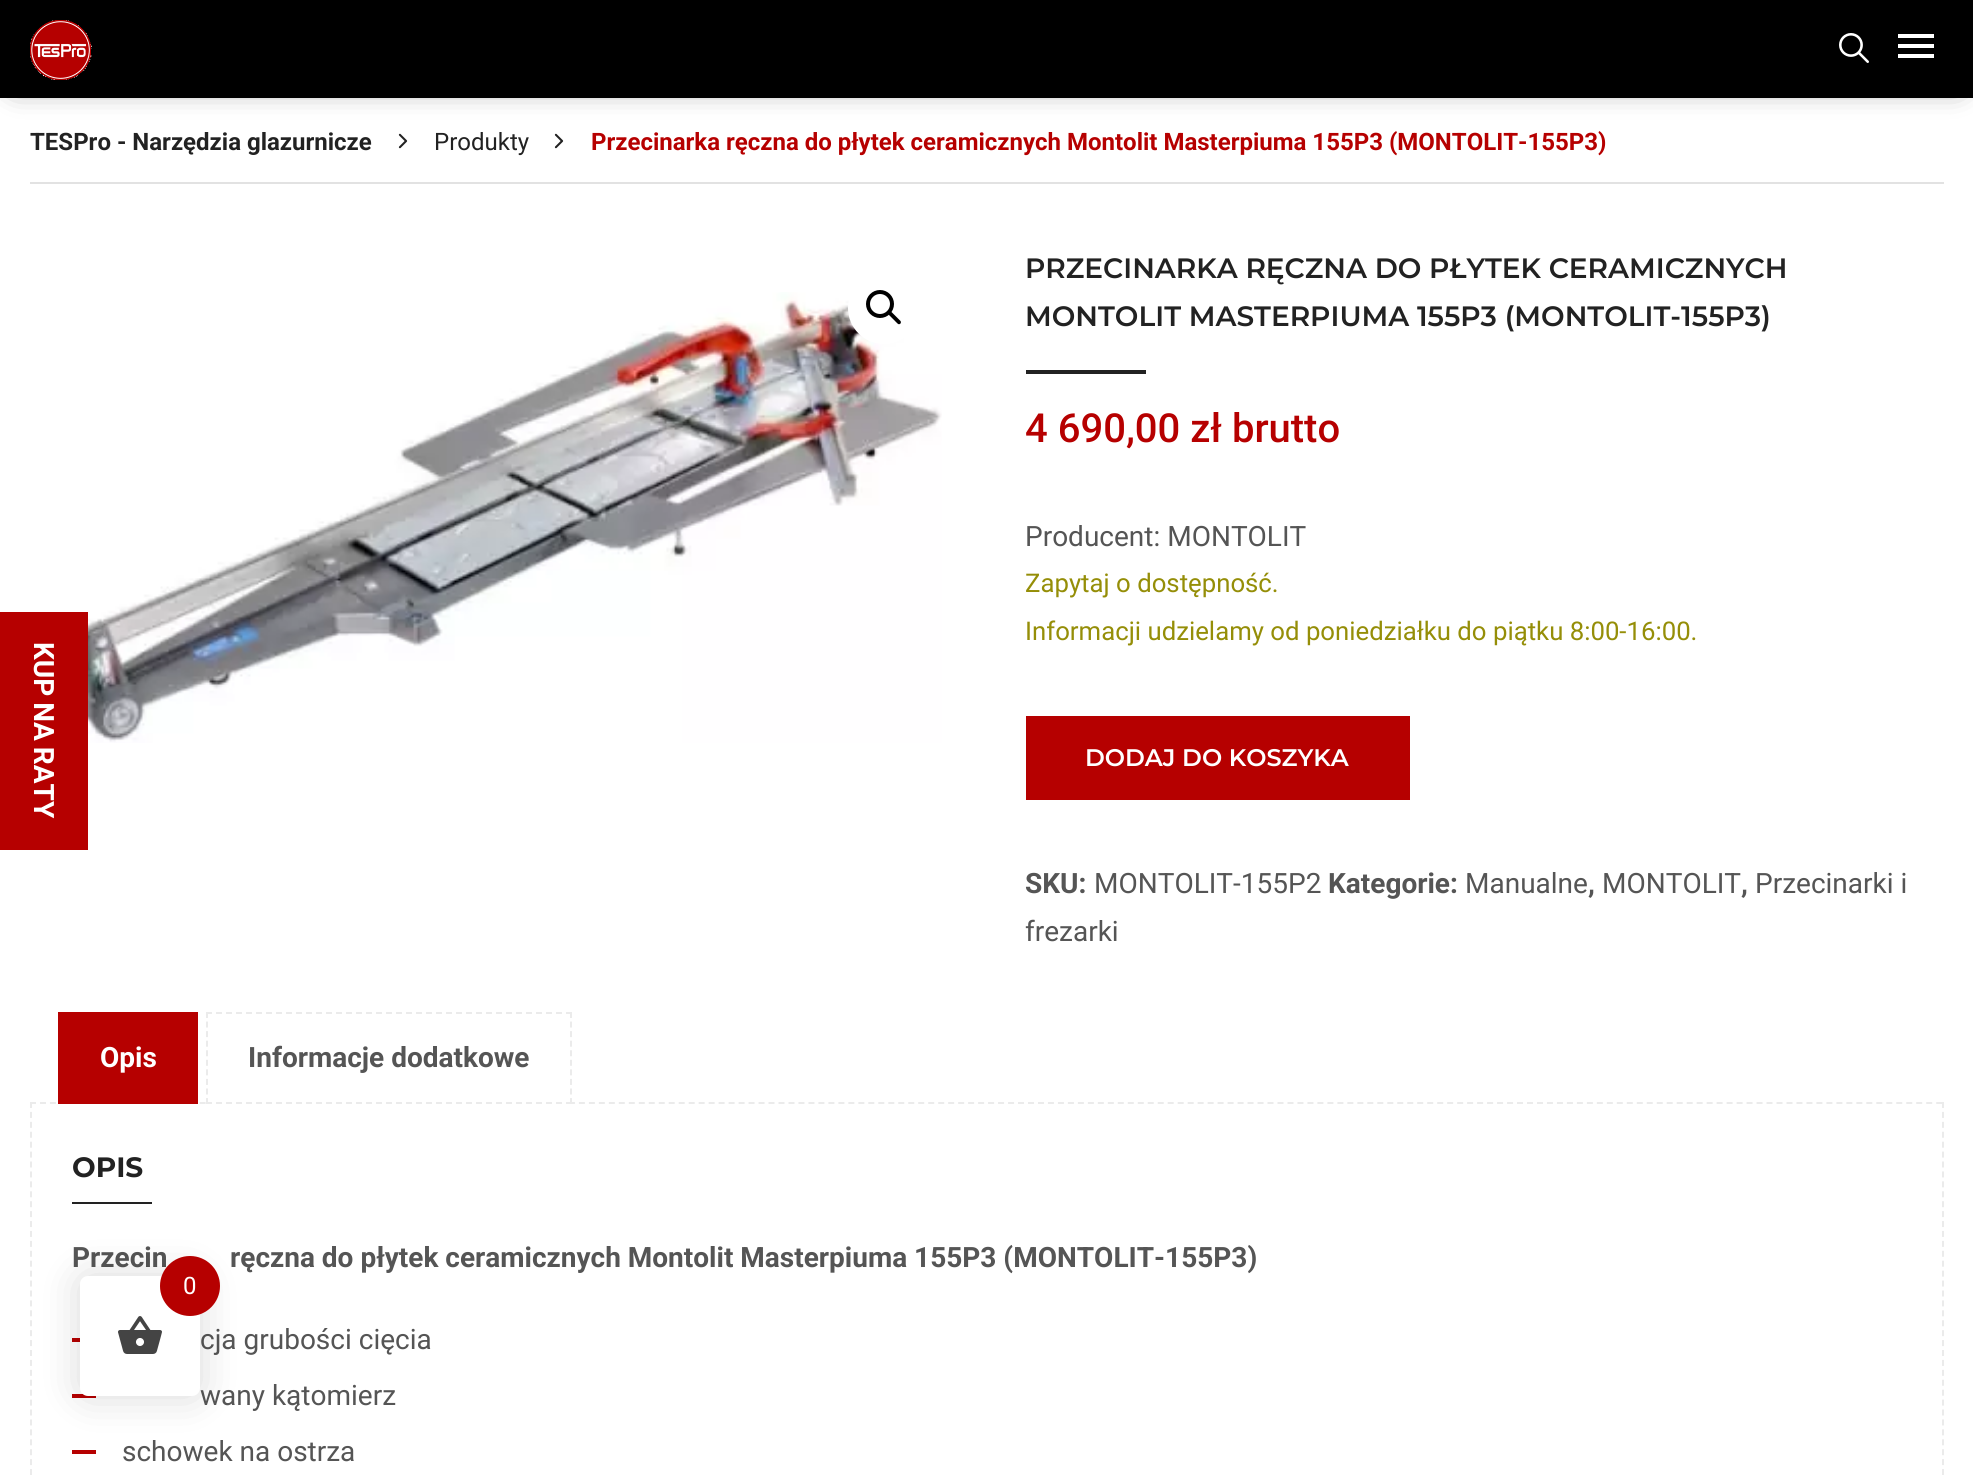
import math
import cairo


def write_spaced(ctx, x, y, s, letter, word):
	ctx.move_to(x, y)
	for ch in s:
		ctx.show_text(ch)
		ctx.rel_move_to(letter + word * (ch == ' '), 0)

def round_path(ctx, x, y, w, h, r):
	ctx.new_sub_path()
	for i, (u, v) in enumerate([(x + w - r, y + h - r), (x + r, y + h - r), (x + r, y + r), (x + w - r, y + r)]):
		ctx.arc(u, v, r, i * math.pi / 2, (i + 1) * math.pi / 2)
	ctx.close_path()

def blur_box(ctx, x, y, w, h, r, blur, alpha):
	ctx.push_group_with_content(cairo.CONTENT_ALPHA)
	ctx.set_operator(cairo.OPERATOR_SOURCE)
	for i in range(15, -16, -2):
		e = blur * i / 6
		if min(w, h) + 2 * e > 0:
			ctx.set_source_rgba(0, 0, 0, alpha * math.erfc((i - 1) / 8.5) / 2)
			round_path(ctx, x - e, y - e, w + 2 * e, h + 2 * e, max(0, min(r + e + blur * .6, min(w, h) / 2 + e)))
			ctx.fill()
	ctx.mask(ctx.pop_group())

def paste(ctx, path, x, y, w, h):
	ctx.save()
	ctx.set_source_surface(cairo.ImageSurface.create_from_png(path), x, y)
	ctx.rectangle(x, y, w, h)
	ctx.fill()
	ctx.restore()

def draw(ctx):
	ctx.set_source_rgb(1, 1, 1)
	ctx.paint()
	ctx.set_source_rgb(0, 0, 0)
	blur_box(ctx, 16, 16, 1942, 66, 0, 15, 0.75)
	ctx.set_source_rgb(0, 0, 0)
	ctx.rectangle(0, 0, 1973, 98)
	ctx.fill()
	ctx.set_source_rgb(1, 1, 1)
	ctx.rectangle(1898, 34, 36, 4)
	ctx.rectangle(1898, 44, 36, 4)
	ctx.rectangle(1898, 54, 36, 4)
	ctx.fill()
	paste(ctx, 'media/1.png', 30, 20, 62, 60)
	paste(ctx, 'media/2.png', 1839, 33, 30, 30)
	ctx.set_source_rgb(0.886, 0.886, 0.886)
	ctx.rectangle(30, 182, 1914, 2)
	ctx.fill()
	ctx.select_font_face('Roboto', cairo.FONT_SLANT_NORMAL, cairo.FONT_WEIGHT_BOLD)
	ctx.set_font_size(24)
	ctx.set_source_rgb(0.133, 0.133, 0.133)
	ctx.move_to(30, 150)
	ctx.show_text('TESPro - Narzędzia glazurnicze')
	paste(ctx, 'media/3.png', 398, 133, 10, 16)
	ctx.select_font_face('Roboto')
	ctx.move_to(434, 150)
	ctx.show_text('Produkty')
	paste(ctx, 'media/3.png', 554, 133, 10, 16)
	ctx.select_font_face('Roboto', cairo.FONT_SLANT_NORMAL, cairo.FONT_WEIGHT_BOLD)
	ctx.set_source_rgb(0.714, 0, 0)
	ctx.move_to(591, 150)
	ctx.show_text('Przecinarka ręczna do płytek ceramicznych Montolit Masterpiuma 155P3 (MONTOLIT-155P3)')
	paste(ctx, 'media/4.png', 54, 292, 888, 451)
	ctx.set_source_rgb(1, 1, 1)
	ctx.arc(884, 308, 36, 0, 2 * math.pi)
	ctx.fill()
	ctx.arc(880, 304, 12, 0, 2 * math.pi)
	ctx.set_source_rgb(0, 0, 0)
	ctx.set_line_width(4)
	ctx.stroke()
	ctx.new_path()
	ctx.move_to(889, 312.5)
	ctx.curve_to(890, 311.5, 891, 311.5, 892, 312.5)
	ctx.line_to(900.5, 321)
	ctx.curve_to(901, 321.5, 901, 323, 900.5, 323.5)
	ctx.curve_to(899.5, 324.5, 898.5, 324.5, 897.5, 323.5)
	ctx.line_to(889, 315)
	ctx.curve_to(888.5, 314.5, 888.5, 313, 889, 312.5)
	ctx.close_path()
	ctx.fill()
	ctx.select_font_face('Montserrat SemiBold')
	ctx.set_font_size(28)
	ctx.set_source_rgb(0.133, 0.133, 0.133)
	ctx.move_to(1025, 278)
	ctx.show_text('PRZECINARKA RĘCZNA DO PŁYTEK CERAMICZNYCH')
	ctx.move_to(1025, 326)
	ctx.show_text('MONTOLIT MASTERPIUMA 155P3 (MONTOLIT-155P3)')
	ctx.rectangle(1026, 370, 120, 4)
	ctx.fill()
	ctx.select_font_face('Roboto Medium')
	ctx.set_font_size(40)
	ctx.set_source_rgb(0.714, 0, 0)
	ctx.move_to(1025, 442)
	ctx.show_text('4 690,00 zł brutto')
	ctx.select_font_face('Roboto')
	ctx.set_font_size(28)
	ctx.set_source_rgb(0.333, 0.333, 0.333)
	ctx.move_to(1025, 546)
	ctx.show_text('Producent: MONTOLIT')
	ctx.set_font_size(25.75)
	ctx.set_source_rgb(0.584, 0.557, 0.035)
	ctx.move_to(1025, 592)
	ctx.show_text('Zapytaj o dostępność.')
	ctx.move_to(1025, 640)
	ctx.show_text('Informacji udzielamy od poniedziałku do piątku 8:00-16:00.')
	ctx.set_source_rgb(0.714, 0, 0)
	ctx.rectangle(1026, 716, 384, 84)
	ctx.fill()
	ctx.select_font_face('Montserrat SemiBold')
	ctx.set_font_size(24)
	ctx.set_source_rgb(1, 1, 1)
	ctx.move_to(1085, 766)
	ctx.show_text('DODAJ DO KOSZYKA')
	ctx.select_font_face('Roboto', cairo.FONT_SLANT_NORMAL, cairo.FONT_WEIGHT_BOLD)
	ctx.set_font_size(28)
	ctx.set_source_rgb(0.333, 0.333, 0.333)
	ctx.move_to(1025, 893)
	ctx.show_text('SKU:')
	ctx.select_font_face('Roboto')
	ctx.move_to(1094, 893)
	ctx.show_text('MONTOLIT-155P2')
	ctx.select_font_face('Roboto', cairo.FONT_SLANT_NORMAL, cairo.FONT_WEIGHT_BOLD)
	ctx.move_to(1328, 893)
	ctx.show_text('Kategorie:')
	ctx.select_font_face('Roboto')
	ctx.move_to(1465, 893)
	ctx.show_text('Manualne')
	ctx.select_font_face('Roboto', cairo.FONT_SLANT_NORMAL, cairo.FONT_WEIGHT_BOLD)
	ctx.move_to(1588, 893)
	ctx.show_text(',')
	ctx.select_font_face('Roboto')
	ctx.move_to(1602, 893)
	ctx.show_text('MONTOLIT')
	ctx.select_font_face('Roboto', cairo.FONT_SLANT_NORMAL, cairo.FONT_WEIGHT_BOLD)
	ctx.move_to(1741, 893)
	ctx.show_text(',')
	ctx.select_font_face('Roboto')
	ctx.move_to(1755, 893)
	ctx.show_text('Przecinarki i')
	ctx.move_to(1025, 941)
	ctx.show_text('frezarki')
	ctx.new_path()
	ctx.move_to(30, 1103)
	ctx.line_to(1944, 1103)
	ctx.set_source_rgb(0.918, 0.918, 0.918)
	ctx.set_line_width(2)
	ctx.set_dash([6, 3.98])
	ctx.stroke()
	ctx.set_source_rgb(0.714, 0, 0)
	ctx.rectangle(58, 1012, 140, 92)
	ctx.fill()
	ctx.select_font_face('Roboto', cairo.FONT_SLANT_NORMAL, cairo.FONT_WEIGHT_BOLD)
	ctx.set_source_rgb(1, 1, 1)
	ctx.move_to(100, 1067)
	ctx.show_text('Opis')
	ctx.rectangle(209, 1102, 363, 2)
	ctx.fill()
	ctx.new_path()
	ctx.move_to(206, 1013)
	ctx.line_to(572, 1013)
	ctx.set_source_rgb(0.918, 0.918, 0.918)
	ctx.set_dash([6, 4])
	ctx.stroke()
	ctx.new_path()
	ctx.move_to(571, 1012)
	ctx.line_to(571, 1104)
	ctx.set_dash([6, 3.56])
	ctx.stroke()
	ctx.new_path()
	ctx.move_to(206, 1103)
	ctx.line_to(572, 1103)
	ctx.set_dash([6, 4])
	ctx.stroke()
	ctx.new_path()
	ctx.move_to(207, 1012)
	ctx.line_to(207, 1104)
	ctx.set_dash([6, 3.56])
	ctx.stroke()
	ctx.set_source_rgb(0.333, 0.333, 0.333)
	ctx.move_to(248, 1067)
	ctx.show_text('Informacje dodatkowe')
	ctx.new_path()
	ctx.move_to(1943, 1102)
	ctx.line_to(1943, 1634)
	ctx.set_source_rgb(0.918, 0.918, 0.918)
	ctx.set_dash([6, 3.92])
	ctx.stroke()
	ctx.new_path()
	ctx.move_to(31, 1102)
	ctx.line_to(31, 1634)
	ctx.stroke()
	ctx.select_font_face('Montserrat', cairo.FONT_SLANT_NORMAL, cairo.FONT_WEIGHT_BOLD)
	ctx.set_source_rgb(0.133, 0.133, 0.133)
	ctx.move_to(72, 1177)
	ctx.show_text('OPIS')
	ctx.rectangle(72, 1202, 80, 2)
	ctx.fill()
	ctx.select_font_face('Roboto', cairo.FONT_SLANT_NORMAL, cairo.FONT_WEIGHT_BOLD)
	ctx.set_source_rgb(0.333, 0.333, 0.333)
	ctx.move_to(72, 1267)
	ctx.show_text('Przecin')
	ctx.move_to(230, 1267)
	ctx.show_text('ręczna do płytek ceramicznych Montolit Masterpiuma 155P3 (MONTOLIT-155P3)')
	ctx.set_source_rgb(0.714, 0, 0)
	ctx.rectangle(72, 1338, 8, 4)
	ctx.fill()
	ctx.select_font_face('Roboto')
	ctx.set_source_rgb(0.333, 0.333, 0.333)
	ctx.move_to(200, 1349)
	ctx.show_text('cja grubości cięcia')
	ctx.set_source_rgb(0.714, 0, 0)
	ctx.rectangle(72, 1394, 24, 4)
	ctx.fill()
	ctx.set_source_rgb(0.333, 0.333, 0.333)
	ctx.move_to(200, 1405)
	ctx.show_text('wany kątomierz')
	ctx.set_source_rgb(0.714, 0, 0)
	ctx.rectangle(72, 1450, 24, 4)
	ctx.fill()
	ctx.set_source_rgb(0.333, 0.333, 0.333)
	ctx.move_to(122, 1461)
	ctx.show_text('schowek na ostrza')
	ctx.set_source_rgb(0.714, 0, 0)
	ctx.rectangle(0, 612, 88, 238)
	ctx.fill()
	ctx.select_font_face('Roboto', cairo.FONT_SLANT_NORMAL, cairo.FONT_WEIGHT_BOLD)
	ctx.set_source_rgb(1, 1, 1)
	ctx.save()
	ctx.translate(34, 642)
	ctx.rotate(90 * math.pi / 180)
	write_spaced(ctx, 0, 0, 'KUP NA RATY', 0, -1)
	ctx.restore()
	ctx.set_source_rgb(0, 0, 0)
	blur_box(ctx, 80, 1276, 120, 120, 8, 20, 0.15)
	ctx.set_source_rgb(1, 1, 1)
	round_path(ctx, 80, 1276, 120, 120, 8)
	ctx.fill()
	ctx.set_source_rgb(0.714, 0, 0)
	ctx.arc(190, 1286, 30, 0, 2 * math.pi)
	ctx.fill()
	ctx.select_font_face('Roboto')
	ctx.set_font_size(24)
	ctx.set_source_rgb(1, 1, 1)
	ctx.move_to(183, 1294)
	ctx.show_text('0')
	paste(ctx, 'media/5.png', 118, 1316, 44, 38)


surface = cairo.ImageSurface(cairo.FORMAT_RGB24, 1973, 1475)
ctx = cairo.Context(surface)
options = cairo.FontOptions()
options.set_hint_metrics(cairo.HINT_METRICS_OFF)
options.set_hint_style(cairo.HINT_STYLE_NONE)
ctx.set_font_options(options)
ctx.set_miter_limit(4)
draw(ctx)
surface.write_to_png('image.png')
